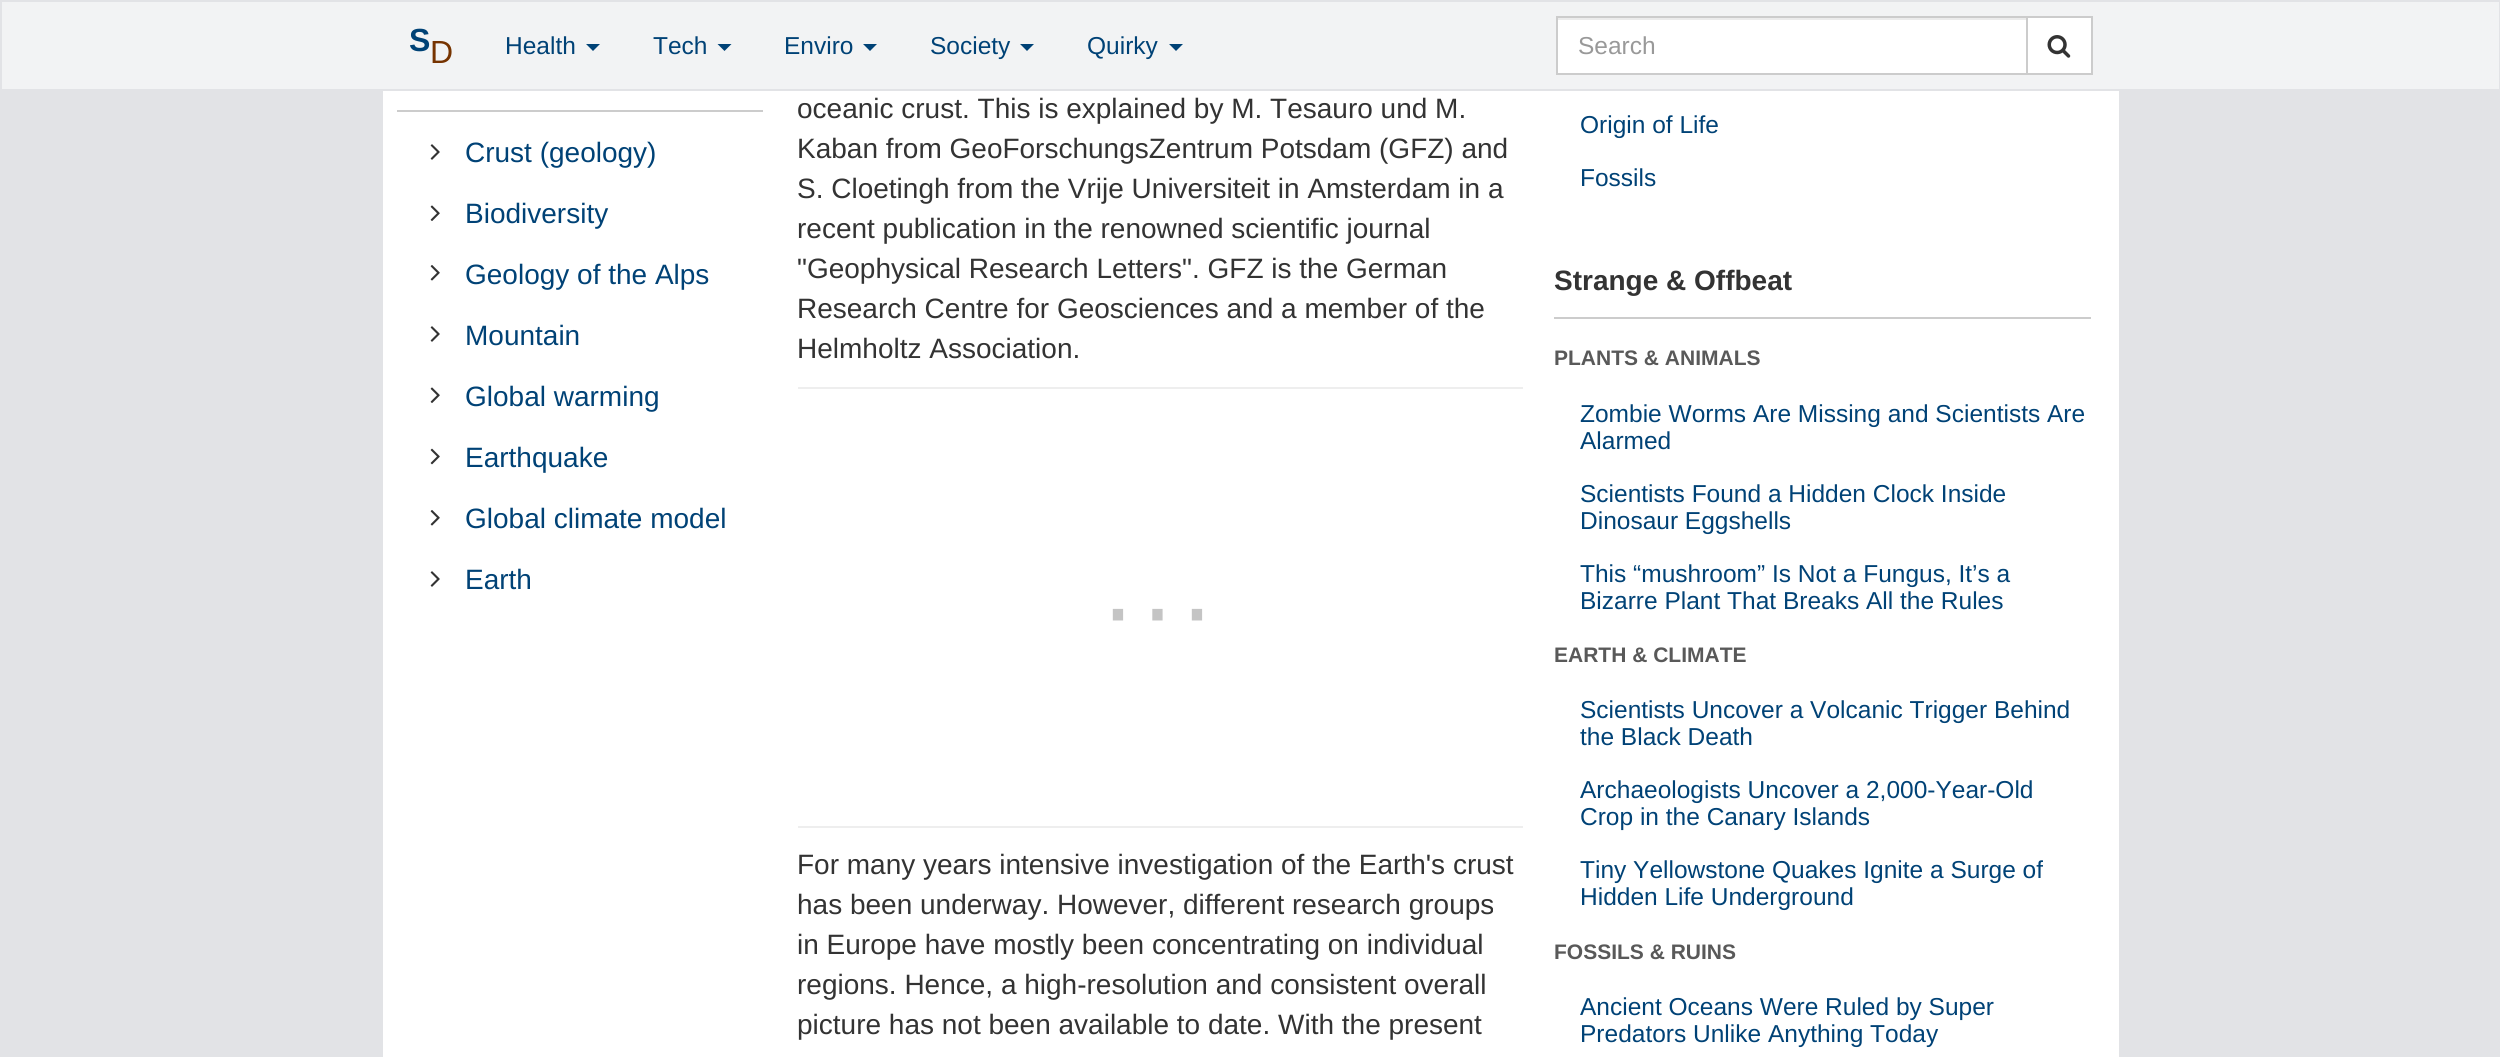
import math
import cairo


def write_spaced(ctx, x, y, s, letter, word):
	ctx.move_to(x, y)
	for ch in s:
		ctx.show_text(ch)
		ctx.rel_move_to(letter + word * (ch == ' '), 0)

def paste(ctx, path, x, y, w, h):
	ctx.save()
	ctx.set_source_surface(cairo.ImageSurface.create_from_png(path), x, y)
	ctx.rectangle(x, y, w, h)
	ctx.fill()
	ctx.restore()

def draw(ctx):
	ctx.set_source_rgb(0.886, 0.89, 0.902)
	ctx.paint()
	ctx.set_source_rgb(0.949, 0.953, 0.957)
	ctx.rectangle(2, 2, 2497, 87)
	ctx.fill()
	ctx.select_font_face('Liberation Sans', cairo.FONT_SLANT_NORMAL, cairo.FONT_WEIGHT_BOLD)
	ctx.set_font_size(32)
	ctx.set_source_rgb(0, 0.259, 0.463)
	ctx.move_to(409, 51)
	ctx.show_text('S')
	ctx.select_font_face('Liberation Sans')
	ctx.set_source_rgb(0.463, 0.2, 0)
	ctx.move_to(430, 63)
	ctx.show_text('D')
	ctx.set_font_size(24.5)
	ctx.set_source_rgb(0, 0.259, 0.463)
	ctx.move_to(505, 54)
	ctx.show_text('Health')
	ctx.new_path()
	ctx.move_to(586, 44)
	ctx.line_to(600, 44)
	ctx.line_to(593, 51)
	ctx.close_path()
	ctx.fill()
	ctx.move_to(653, 54)
	ctx.show_text('Tech')
	ctx.new_path()
	ctx.move_to(717.5, 44)
	ctx.line_to(731.5, 44)
	ctx.line_to(724.5, 51)
	ctx.close_path()
	ctx.fill()
	ctx.move_to(784, 54)
	ctx.show_text('Enviro')
	ctx.new_path()
	ctx.move_to(863, 44)
	ctx.line_to(877, 44)
	ctx.line_to(870, 51)
	ctx.close_path()
	ctx.fill()
	ctx.move_to(930, 54)
	ctx.show_text('Society')
	ctx.new_path()
	ctx.move_to(1020, 44)
	ctx.line_to(1034, 44)
	ctx.line_to(1027, 51)
	ctx.close_path()
	ctx.fill()
	ctx.move_to(1087, 54)
	ctx.show_text('Quirky')
	ctx.new_path()
	ctx.move_to(1169, 44)
	ctx.line_to(1183, 44)
	ctx.line_to(1176, 51)
	ctx.close_path()
	ctx.fill()
	ctx.set_source_rgb(1, 1, 1)
	ctx.rectangle(2028, 18, 63, 55)
	ctx.fill()
	ctx.rectangle(2026, 17, 66, 57)
	ctx.set_source_rgb(0.8, 0.8, 0.8)
	ctx.stroke()
	ctx.set_source_rgb(1, 1, 1)
	ctx.rectangle(1558, 20, 468, 53)
	ctx.fill()
	ctx.set_source_rgb(0.925, 0.925, 0.925)
	ctx.rectangle(1558, 18, 469, 2)
	ctx.fill()
	ctx.rectangle(1557, 17, 470, 57)
	ctx.set_source_rgb(0.8, 0.8, 0.8)
	ctx.stroke()
	ctx.set_source_rgb(0.6, 0.6, 0.6)
	ctx.move_to(1578, 54)
	ctx.show_text('Search')
	paste(ctx, 'media/1.png', 2047, 35, 24, 23)
	ctx.set_source_rgb(1, 1, 1)
	ctx.rectangle(383, 91, 1736, 966)
	ctx.fill()
	ctx.set_source_rgb(0.8, 0.8, 0.8)
	ctx.rectangle(397, 110, 366, 2)
	ctx.fill()
	paste(ctx, 'media/2.png', 430, 144, 10, 16)
	ctx.set_font_size(28)
	ctx.set_source_rgb(0, 0.259, 0.463)
	ctx.move_to(465, 162)
	ctx.show_text('Crust (geology)')
	paste(ctx, 'media/3.png', 430, 205, 10, 16)
	ctx.move_to(465, 223)
	ctx.show_text('Biodiversity')
	paste(ctx, 'media/4.png', 430, 265, 10, 16)
	ctx.move_to(465, 284)
	ctx.show_text('Geology of the Alps')
	paste(ctx, 'media/2.png', 430, 326, 10, 16)
	ctx.move_to(465, 345)
	ctx.show_text('Mountain')
	paste(ctx, 'media/3.png', 430, 387, 10, 16)
	ctx.move_to(465, 406)
	ctx.show_text('Global warming')
	paste(ctx, 'media/5.png', 430, 448, 10, 17)
	ctx.move_to(465, 467)
	ctx.show_text('Earthquake')
	paste(ctx, 'media/4.png', 430, 510, 10, 16)
	ctx.move_to(465, 528)
	ctx.show_text('Global climate model')
	paste(ctx, 'media/2.png', 430, 571, 10, 16)
	ctx.move_to(465, 589)
	ctx.show_text('Earth')
	ctx.set_source_rgb(0.2, 0.2, 0.2)
	for x, y, s in [
		(797, 118, 'oceanic crust. This is explained by M. Tesauro und M.'),
		(797, 158, 'Kaban from GeoForschungsZentrum Potsdam (GFZ) and'),
		(797, 198, 'S. Cloetingh from the Vrije Universiteit in Amsterdam in a'),
		(797, 238, 'recent publication in the renowned scientific journal'),
		(797, 278, '"Geophysical Research Letters". GFZ is the German'),
		(797, 318, 'Research Centre for Geosciences and a member of the'),
		(797, 358, 'Helmholtz Association.'),
	]:
		ctx.move_to(x, y)
		ctx.show_text(s)
	ctx.set_source_rgb(0.933, 0.933, 0.933)
	ctx.rectangle(798, 387, 725, 2)
	ctx.fill()
	ctx.rectangle(798, 826, 725, 2)
	ctx.fill()
	ctx.set_font_size(108)
	ctx.set_source_rgb(0.769, 0.769, 0.769)
	write_spaced(ctx, 1100, 644, '···', 3.5, 0)
	ctx.set_font_size(28)
	ctx.set_source_rgb(0.2, 0.2, 0.2)
	for x, y, s in [
		(797, 874, 'For many years intensive investigation of the Earth\'s crust'),
		(797, 914, 'has been underway. However, different research groups'),
		(797, 954, 'in Europe have mostly been concentrating on individual'),
		(797, 994, 'regions. Hence, a high-resolution and consistent overall'),
		(797, 1034, 'picture has not been available to date. With the present'),
	]:
		ctx.move_to(x, y)
		ctx.show_text(s)
	ctx.set_font_size(24.5)
	ctx.set_source_rgb(0, 0.259, 0.463)
	ctx.move_to(1580, 133)
	ctx.show_text('Origin of Life')
	ctx.move_to(1580, 186)
	ctx.show_text('Fossils')
	ctx.select_font_face('Liberation Sans', cairo.FONT_SLANT_NORMAL, cairo.FONT_WEIGHT_BOLD)
	ctx.set_font_size(28)
	ctx.set_source_rgb(0.2, 0.2, 0.2)
	ctx.move_to(1554, 290)
	ctx.show_text('Strange & Offbeat')
	ctx.set_source_rgb(0.8, 0.8, 0.8)
	ctx.rectangle(1554, 317, 537, 2)
	ctx.fill()
	ctx.set_font_size(21)
	ctx.set_source_rgb(0.349, 0.349, 0.349)
	ctx.move_to(1554, 365)
	ctx.show_text('PLANTS & ANIMALS')
	ctx.select_font_face('Liberation Sans')
	ctx.set_font_size(24.5)
	ctx.set_source_rgb(0, 0.259, 0.463)
	for x, y, s in [
		(1580, 422, 'Zombie Worms Are Missing and Scientists Are'),
		(1580, 449, 'Alarmed'),
		(1580, 502, 'Scientists Found a Hidden Clock Inside'),
		(1580, 529, 'Dinosaur Eggshells'),
		(1580, 582, 'This “mushroom” Is Not a Fungus, It’s a'),
		(1580, 609, 'Bizarre Plant That Breaks All the Rules'),
	]:
		ctx.move_to(x, y)
		ctx.show_text(s)
	ctx.select_font_face('Liberation Sans', cairo.FONT_SLANT_NORMAL, cairo.FONT_WEIGHT_BOLD)
	ctx.set_font_size(21)
	ctx.set_source_rgb(0.349, 0.349, 0.349)
	ctx.move_to(1554, 662)
	ctx.show_text('EARTH & CLIMATE')
	ctx.select_font_face('Liberation Sans')
	ctx.set_font_size(24.5)
	ctx.set_source_rgb(0, 0.259, 0.463)
	for x, y, s in [
		(1580, 718, 'Scientists Uncover a Volcanic Trigger Behind'),
		(1580, 745, 'the Black Death'),
		(1580, 798, 'Archaeologists Uncover a 2,000-Year-Old'),
		(1580, 825, 'Crop in the Canary Islands'),
		(1580, 878, 'Tiny Yellowstone Quakes Ignite a Surge of'),
		(1580, 905, 'Hidden Life Underground'),
	]:
		ctx.move_to(x, y)
		ctx.show_text(s)
	ctx.select_font_face('Liberation Sans', cairo.FONT_SLANT_NORMAL, cairo.FONT_WEIGHT_BOLD)
	ctx.set_font_size(21)
	ctx.set_source_rgb(0.349, 0.349, 0.349)
	ctx.move_to(1554, 959)
	ctx.show_text('FOSSILS & RUINS')
	ctx.select_font_face('Liberation Sans')
	ctx.set_font_size(24.5)
	ctx.set_source_rgb(0, 0.259, 0.463)
	ctx.move_to(1580, 1015)
	ctx.show_text('Ancient Oceans Were Ruled by Super')
	ctx.move_to(1580, 1042)
	ctx.show_text('Predators Unlike Anything Today')


surface = cairo.ImageSurface(cairo.FORMAT_RGB24, 2500, 1057)
ctx = cairo.Context(surface)
options = cairo.FontOptions()
options.set_hint_metrics(cairo.HINT_METRICS_OFF)
options.set_hint_style(cairo.HINT_STYLE_NONE)
ctx.set_font_options(options)
ctx.set_miter_limit(4)
draw(ctx)
surface.write_to_png('image.png')
